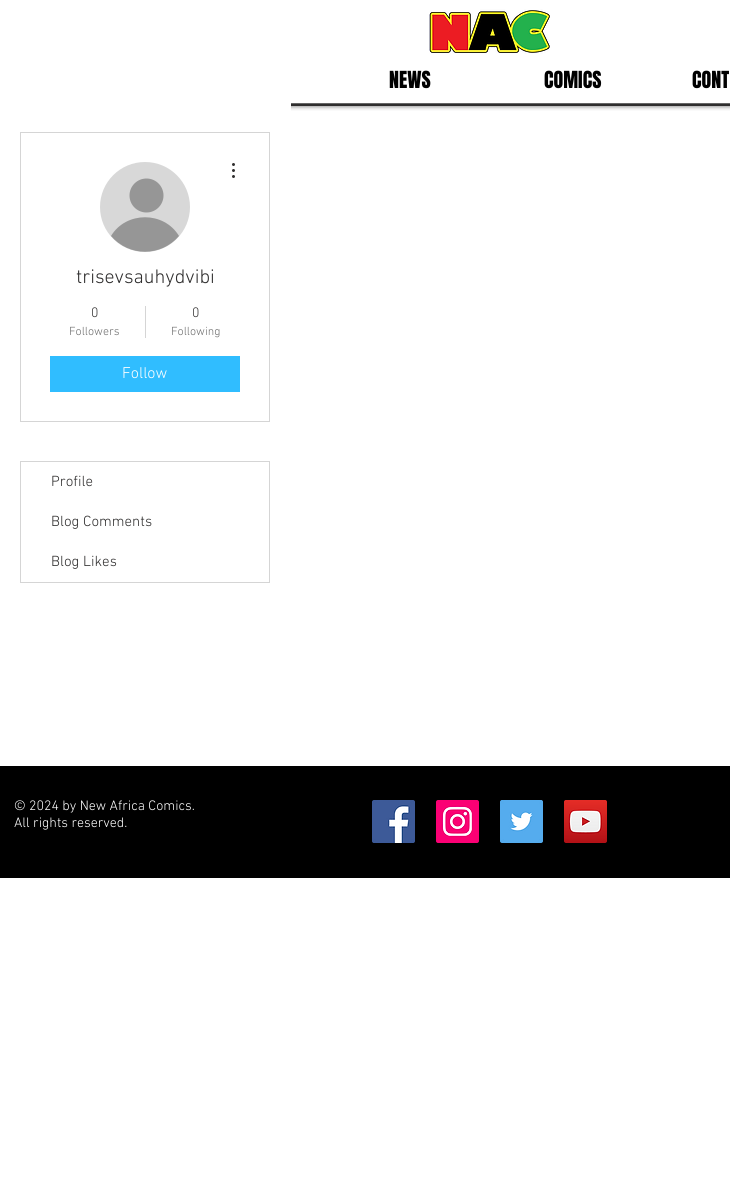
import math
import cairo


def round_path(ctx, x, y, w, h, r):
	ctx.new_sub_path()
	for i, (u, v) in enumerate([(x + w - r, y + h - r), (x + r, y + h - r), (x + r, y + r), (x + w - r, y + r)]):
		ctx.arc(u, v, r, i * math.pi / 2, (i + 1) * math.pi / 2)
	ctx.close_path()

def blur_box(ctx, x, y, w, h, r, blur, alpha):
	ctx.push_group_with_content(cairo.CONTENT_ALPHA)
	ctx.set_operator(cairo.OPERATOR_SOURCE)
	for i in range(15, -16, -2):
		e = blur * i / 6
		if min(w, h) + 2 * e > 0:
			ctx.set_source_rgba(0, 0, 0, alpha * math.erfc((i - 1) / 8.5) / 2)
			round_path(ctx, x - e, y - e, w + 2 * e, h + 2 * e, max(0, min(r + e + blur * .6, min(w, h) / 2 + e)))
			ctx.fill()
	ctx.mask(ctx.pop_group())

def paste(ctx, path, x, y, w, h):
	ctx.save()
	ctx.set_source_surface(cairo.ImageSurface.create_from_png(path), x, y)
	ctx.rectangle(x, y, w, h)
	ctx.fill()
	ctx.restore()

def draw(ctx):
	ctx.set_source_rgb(1, 1, 1)
	ctx.paint()
	ctx.save()
	ctx.rectangle(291, 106, 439, 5)
	ctx.clip()
	ctx.set_source_rgb(0, 0, 0)
	blur_box(ctx, 0, 0, 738, 106, 0, 2.5, 0.6)
	ctx.restore()
	ctx.set_source_rgb(0.4, 0.4, 0.4)
	ctx.rectangle(291, 103, 439, 1)
	ctx.fill()
	ctx.set_source_rgb(0.184, 0.18, 0.18)
	ctx.rectangle(291, 104, 439, 2)
	ctx.fill()
	paste(ctx, 'media/1.png', 429, 9, 121, 45)
	ctx.select_font_face('Anton')
	ctx.set_font_size(20)
	ctx.set_source_rgb(0, 0, 0)
	for x, y, s in [
		(389, 88, 'NEWS'),
		(544, 88, 'COMICS'),
		(692, 88, 'CONT'),
	]:
		ctx.move_to(x, y)
		ctx.show_text(s)
	ctx.set_source_rgb(1, 1, 1)
	ctx.rectangle(0, 106, 291, 5)
	ctx.fill()
	ctx.rectangle(20.5, 132.5, 249, 289)
	ctx.set_source_rgb(0.835, 0.835, 0.835)
	ctx.set_line_width(1)
	ctx.stroke()
	ctx.set_source_rgb(0.847, 0.847, 0.847)
	ctx.arc(145, 207, 45, 0, 2 * math.pi)
	ctx.fill()
	ctx.set_source_rgb(0.588, 0.588, 0.588)
	ctx.arc(146.5, 195.5, 17, 0, 2 * math.pi)
	ctx.fill()
	ctx.new_path()
	ctx.move_to(179, 236)
	ctx.curve_to(161, 257, 129, 257, 111, 236)
	ctx.curve_to(126, 211, 164, 211, 179, 236)
	ctx.close_path()
	ctx.fill()
	paste(ctx, 'media/2.png', 232, 163, 3, 15)
	ctx.select_font_face('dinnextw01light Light')
	ctx.set_source_rgb(0.184, 0.18, 0.18)
	ctx.move_to(76, 283)
	ctx.show_text('trisevsauhydvibi')
	ctx.set_font_size(14)
	ctx.move_to(91, 317)
	ctx.show_text('0')
	ctx.set_font_size(12)
	ctx.set_source_rgb(0.427, 0.427, 0.427)
	ctx.move_to(69, 335)
	ctx.show_text('Followers')
	ctx.set_source_rgb(0.835, 0.835, 0.835)
	ctx.rectangle(145, 306, 1, 32)
	ctx.fill()
	ctx.set_font_size(14)
	ctx.set_source_rgb(0.184, 0.18, 0.18)
	ctx.move_to(192, 317)
	ctx.show_text('0')
	ctx.set_font_size(12)
	ctx.set_source_rgb(0.427, 0.427, 0.427)
	ctx.move_to(171, 335)
	ctx.show_text('Following')
	ctx.set_source_rgb(0.188, 0.741, 1)
	ctx.rectangle(50, 356, 190, 36)
	ctx.fill()
	ctx.set_font_size(16)
	ctx.set_source_rgb(1, 1, 1)
	ctx.move_to(122, 378)
	ctx.show_text('Follow')
	ctx.rectangle(20.5, 461.5, 249, 121)
	ctx.set_source_rgb(0.835, 0.835, 0.835)
	ctx.stroke()
	ctx.set_font_size(15)
	ctx.set_source_rgb(0.184, 0.18, 0.18)
	for x, y, s in [
		(51, 486, 'Profile'),
		(51, 526, 'Blog Comments'),
		(51, 566, 'Blog Likes'),
	]:
		ctx.move_to(x, y)
		ctx.show_text(s)
	ctx.set_source_rgb(0, 0, 0)
	ctx.rectangle(0, 766, 730, 112)
	ctx.fill()
	ctx.set_font_size(14)
	ctx.set_source_rgb(1, 1, 1)
	ctx.move_to(14, 810)
	ctx.show_text('© 2024 by New Africa Comics.')
	ctx.move_to(14, 827)
	ctx.show_text('All rights reserved.')
	paste(ctx, 'media/3.png', 372, 800, 43, 43)
	paste(ctx, 'media/4.png', 436, 800, 43, 43)
	paste(ctx, 'media/5.png', 500, 800, 43, 43)
	paste(ctx, 'media/6.png', 564, 800, 43, 43)


surface = cairo.ImageSurface(cairo.FORMAT_RGB24, 730, 1201)
ctx = cairo.Context(surface)
options = cairo.FontOptions()
options.set_hint_metrics(cairo.HINT_METRICS_OFF)
options.set_hint_style(cairo.HINT_STYLE_NONE)
ctx.set_font_options(options)
ctx.set_miter_limit(4)
draw(ctx)
surface.write_to_png('image.png')
